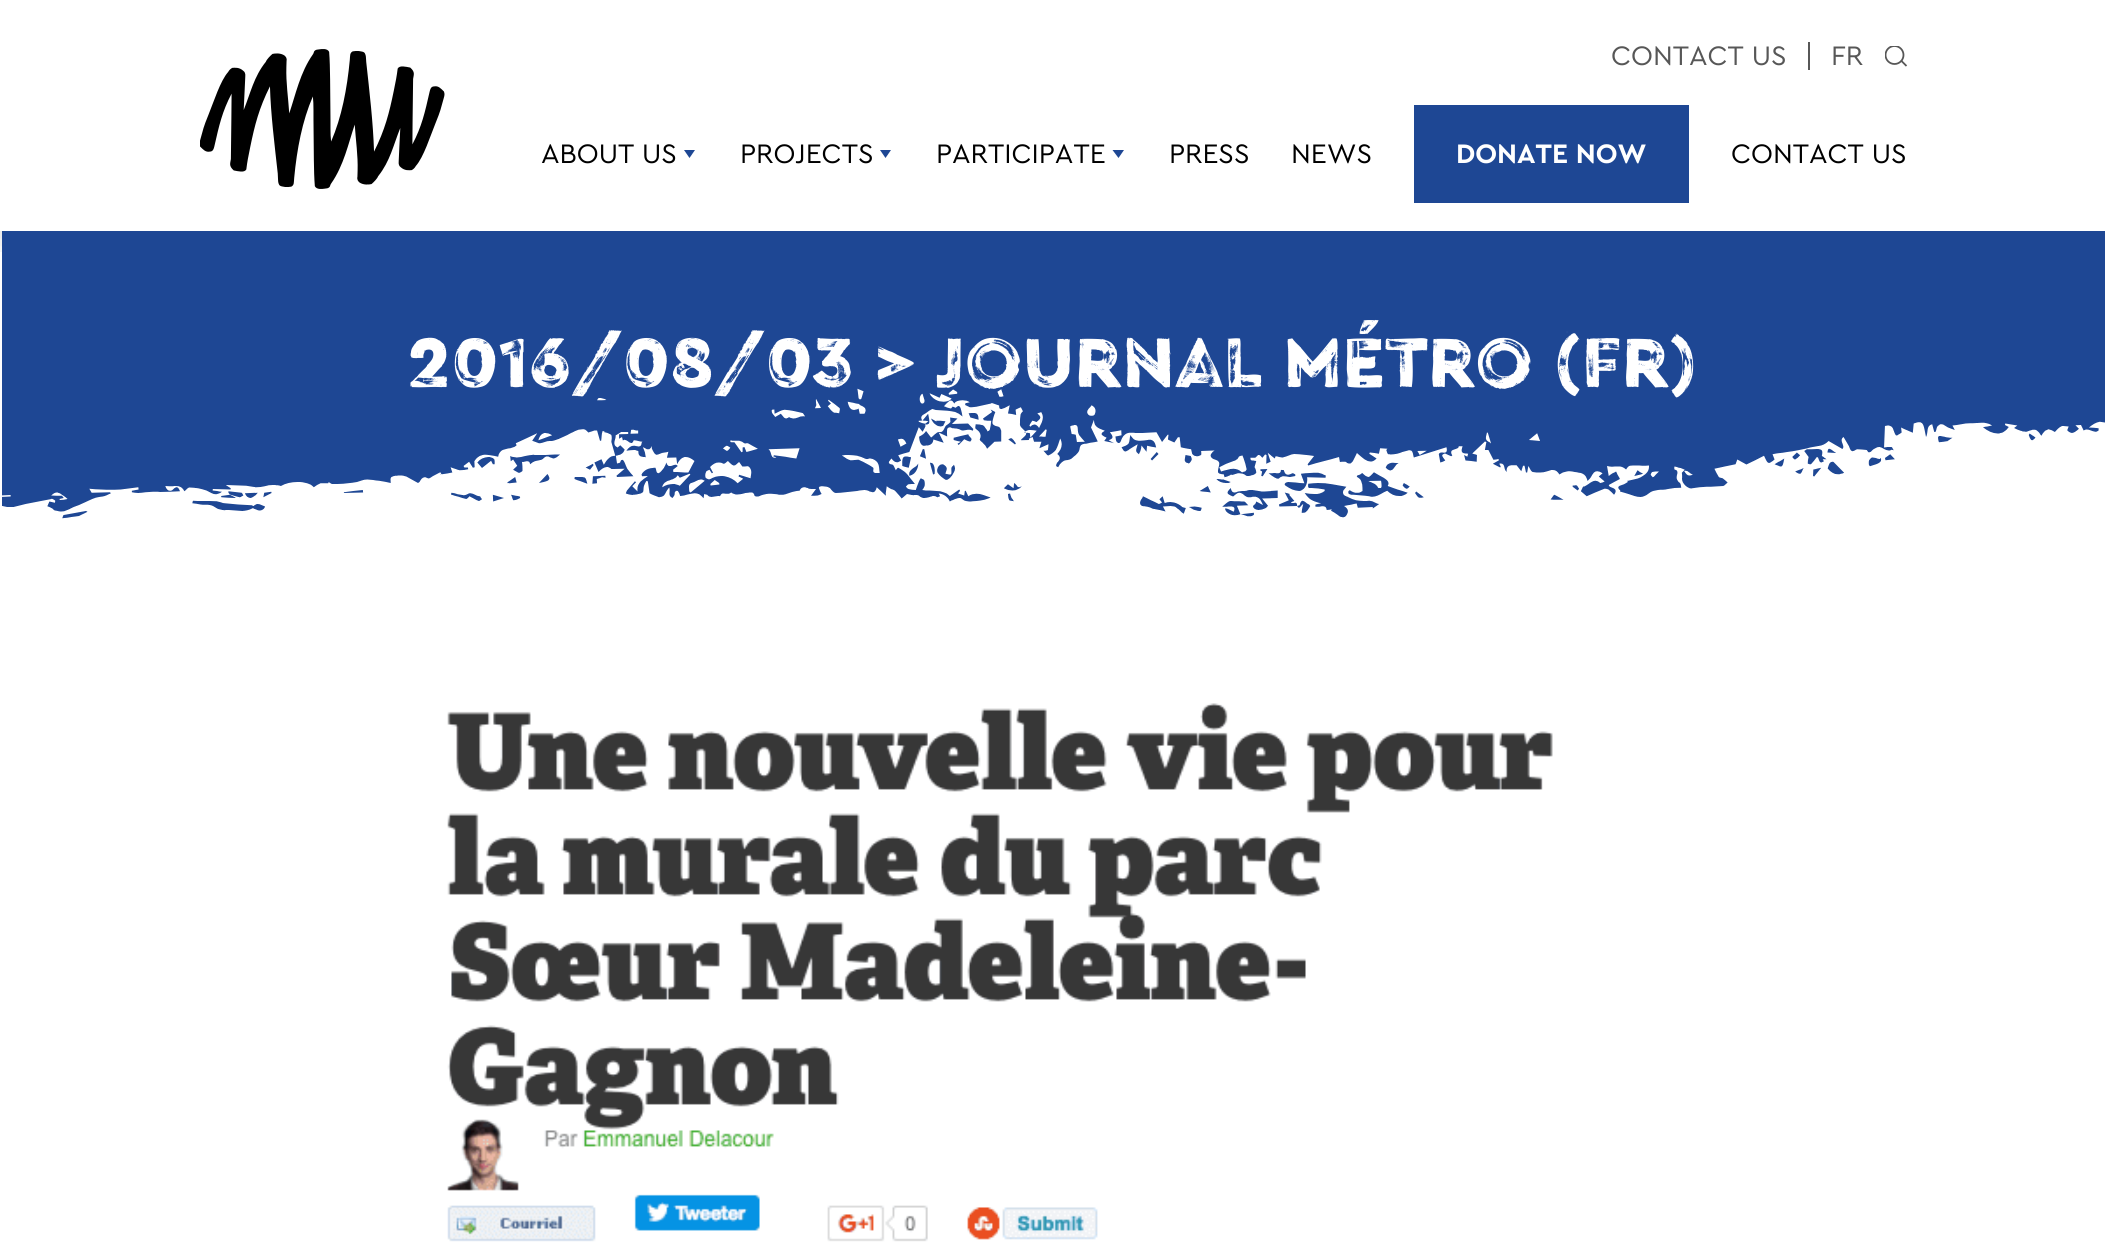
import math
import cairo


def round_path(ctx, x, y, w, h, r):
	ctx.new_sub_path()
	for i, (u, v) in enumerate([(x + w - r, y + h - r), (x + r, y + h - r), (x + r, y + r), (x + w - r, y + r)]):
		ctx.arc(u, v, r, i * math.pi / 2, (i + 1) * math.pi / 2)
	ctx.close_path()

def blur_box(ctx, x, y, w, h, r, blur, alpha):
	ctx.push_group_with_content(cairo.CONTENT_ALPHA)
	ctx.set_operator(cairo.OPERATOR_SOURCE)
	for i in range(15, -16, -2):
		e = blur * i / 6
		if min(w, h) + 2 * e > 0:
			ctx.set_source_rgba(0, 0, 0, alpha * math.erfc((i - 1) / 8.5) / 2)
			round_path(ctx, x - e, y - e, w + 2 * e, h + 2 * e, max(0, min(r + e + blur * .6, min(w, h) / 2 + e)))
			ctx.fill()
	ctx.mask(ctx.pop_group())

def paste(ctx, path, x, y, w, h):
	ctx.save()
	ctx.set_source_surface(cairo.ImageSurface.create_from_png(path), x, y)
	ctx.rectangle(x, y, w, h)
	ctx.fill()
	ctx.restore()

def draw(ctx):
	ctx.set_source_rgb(1, 1, 1)
	ctx.paint()
	ctx.save()
	ctx.rectangle(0, 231, 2, 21)
	ctx.clip()
	ctx.set_source_rgb(0, 0, 0)
	blur_box(ctx, 0, 9, 2105, 231, 0, 17.5, 0.15)
	ctx.restore()
	paste(ctx, 'media/1.png', 200, 49, 245, 140)
	ctx.select_font_face('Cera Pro')
	ctx.set_font_size(28)
	ctx.set_source_rgb(0.341, 0.341, 0.341)
	ctx.move_to(1611, 65)
	ctx.show_text('CONTACT US')
	ctx.rectangle(1808, 42, 2, 28)
	ctx.fill()
	ctx.move_to(1831, 65)
	ctx.show_text('FR')
	ctx.save()
	ctx.rectangle(1885, 46, 23, 21)
	ctx.clip()
	ctx.arc(1894.5, 55, 9, 0, 2 * math.pi)
	ctx.set_line_width(1.8)
	ctx.stroke()
	ctx.restore()
	ctx.new_path()
	ctx.move_to(1901, 60.5)
	ctx.line_to(1906.5, 66)
	ctx.set_line_width(1.8)
	ctx.stroke()
	ctx.set_source_rgb(0, 0, 0)
	ctx.move_to(541, 163)
	ctx.show_text('ABOUT US')
	ctx.set_source_rgb(0.118, 0.278, 0.58)
	ctx.new_path()
	ctx.move_to(689.5, 158)
	ctx.line_to(695, 150)
	ctx.line_to(684, 150)
	ctx.close_path()
	ctx.fill()
	ctx.set_source_rgb(0, 0, 0)
	ctx.move_to(740, 163)
	ctx.show_text('PROJECTS')
	ctx.set_source_rgb(0.118, 0.278, 0.58)
	ctx.new_path()
	ctx.move_to(885.5, 158)
	ctx.line_to(891, 150)
	ctx.line_to(880, 150)
	ctx.close_path()
	ctx.fill()
	ctx.set_source_rgb(0, 0, 0)
	ctx.move_to(936, 163)
	ctx.show_text('PARTICIPATE')
	ctx.set_source_rgb(0.118, 0.278, 0.58)
	ctx.new_path()
	ctx.move_to(1118.5, 158)
	ctx.line_to(1124, 150)
	ctx.line_to(1112.5, 150)
	ctx.close_path()
	ctx.fill()
	ctx.set_source_rgb(0, 0, 0)
	ctx.move_to(1169, 163)
	ctx.show_text('PRESS')
	ctx.move_to(1291, 163)
	ctx.show_text('NEWS')
	ctx.set_source_rgb(0.118, 0.278, 0.58)
	ctx.rectangle(1414, 105, 275, 98)
	ctx.fill()
	ctx.select_font_face('Cera Pro', cairo.FONT_SLANT_NORMAL, cairo.FONT_WEIGHT_BOLD)
	ctx.set_source_rgb(1, 1, 1)
	ctx.move_to(1456, 163)
	ctx.show_text('DONATE NOW')
	ctx.select_font_face('Cera Pro')
	ctx.set_source_rgb(0, 0, 0)
	ctx.move_to(1731, 163)
	ctx.show_text('CONTACT US')
	ctx.set_source_rgb(0.118, 0.278, 0.58)
	ctx.rectangle(2, 231, 2103, 288)
	ctx.fill()
	paste(ctx, 'media/2.png', 2, 388, 2103, 225)
	ctx.select_font_face('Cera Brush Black')
	ctx.set_font_size(73.5)
	ctx.set_source_rgb(1, 1, 1)
	ctx.move_to(407, 387)
	ctx.show_text('2016/08/03 > JOURNAL MÉTRO (FR)')
	paste(ctx, 'media/3.png', 447, 703, 1106, 539)


surface = cairo.ImageSurface(cairo.FORMAT_RGB24, 2105, 1256)
ctx = cairo.Context(surface)
options = cairo.FontOptions()
options.set_hint_metrics(cairo.HINT_METRICS_OFF)
options.set_hint_style(cairo.HINT_STYLE_NONE)
ctx.set_font_options(options)
ctx.set_miter_limit(4)
draw(ctx)
surface.write_to_png('image.png')
